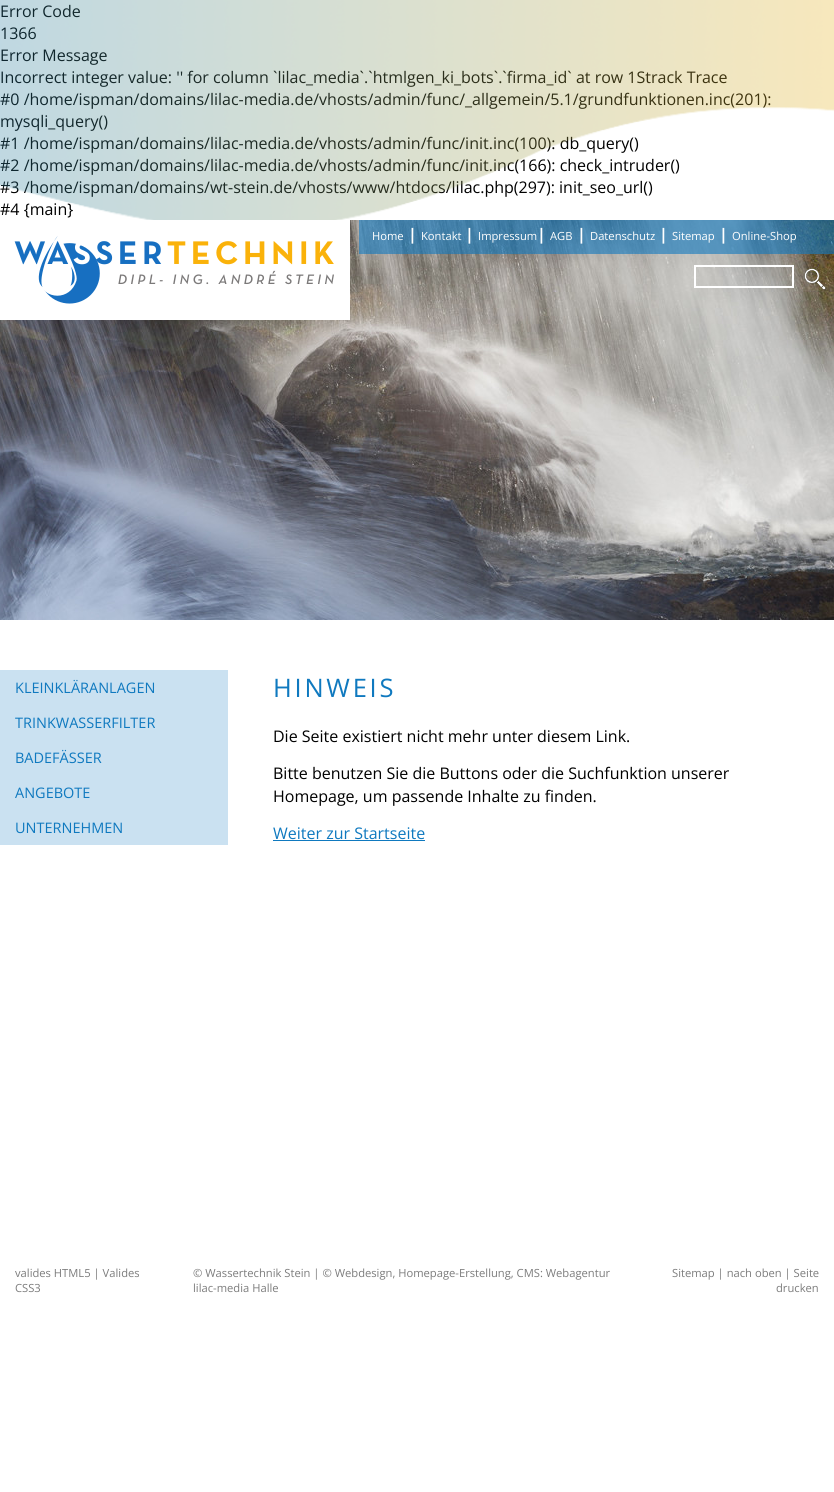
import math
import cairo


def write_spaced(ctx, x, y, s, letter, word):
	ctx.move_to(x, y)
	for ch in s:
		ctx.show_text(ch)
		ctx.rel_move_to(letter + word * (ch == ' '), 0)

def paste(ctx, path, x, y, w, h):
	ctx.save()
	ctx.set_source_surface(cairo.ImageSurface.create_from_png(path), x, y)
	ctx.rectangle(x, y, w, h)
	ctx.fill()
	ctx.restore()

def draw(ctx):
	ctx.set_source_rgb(1, 1, 1)
	ctx.paint()
	ctx.select_font_face('Open Sans')
	ctx.set_font_size(16)
	ctx.set_source_rgb(0, 0, 0)
	for x, y, s in [
		(0, 17, 'Error Code'),
		(0, 39, '1366'),
		(0, 61, 'Error Message'),
		(0, 83, 'Incorrect integer value: \'\' for column `lilac_media`.`htmlgen_ki_bots`.`firma_id` at row 1Strack Trace'),
		(0, 105, '#0 /home/ispman/domains/lilac-media.de/vhosts/admin/func/_allgemein/5.1/grundfunktionen.inc(201):'),
		(0, 127, 'mysqli_query()'),
		(0, 149, '#1 /home/ispman/domains/lilac-media.de/vhosts/admin/func/init.inc(100): db_query()'),
		(0, 171, '#2 /home/ispman/domains/lilac-media.de/vhosts/admin/func/init.inc(166): check_intruder()'),
		(0, 193, '#3 /home/ispman/domains/wt-stein.de/vhosts/www/htdocs/lilac.php(297): init_seo_url()'),
		(0, 215, '#4 {main}'),
	]:
		ctx.move_to(x, y)
		ctx.show_text(s)
	paste(ctx, 'media/1.png', 0, 0, 834, 220)
	paste(ctx, 'media/2.png', 0, 220, 834, 400)
	paste(ctx, 'media/3.png', 0, 220, 350, 100)
	ctx.set_source_rgba(0.059, 0.475, 0.749, 0.6)
	ctx.rectangle(359, 220, 475, 34)
	ctx.fill()
	ctx.set_font_size(11.2)
	ctx.set_source_rgb(1, 1, 1)
	ctx.move_to(372, 240)
	ctx.show_text('Home')
	ctx.select_font_face('Open Sans', cairo.FONT_SLANT_NORMAL, cairo.FONT_WEIGHT_BOLD)
	ctx.set_font_size(16)
	ctx.move_to(408, 240)
	ctx.show_text('|')
	ctx.select_font_face('Open Sans')
	ctx.set_font_size(11.2)
	ctx.move_to(421, 240)
	ctx.show_text('Kontakt')
	ctx.select_font_face('Open Sans', cairo.FONT_SLANT_NORMAL, cairo.FONT_WEIGHT_BOLD)
	ctx.set_font_size(16)
	ctx.move_to(465, 240)
	ctx.show_text('|')
	ctx.select_font_face('Open Sans')
	ctx.set_font_size(11.2)
	ctx.move_to(478, 240)
	ctx.show_text('Impressum')
	ctx.select_font_face('Open Sans', cairo.FONT_SLANT_NORMAL, cairo.FONT_WEIGHT_BOLD)
	ctx.set_font_size(16)
	ctx.move_to(537, 240)
	ctx.show_text('|')
	ctx.select_font_face('Open Sans')
	ctx.set_font_size(11.2)
	ctx.move_to(550, 240)
	ctx.show_text('AGB')
	ctx.select_font_face('Open Sans', cairo.FONT_SLANT_NORMAL, cairo.FONT_WEIGHT_BOLD)
	ctx.set_font_size(16)
	ctx.move_to(577, 240)
	ctx.show_text('|')
	ctx.select_font_face('Open Sans')
	ctx.set_font_size(11.2)
	ctx.move_to(590, 240)
	ctx.show_text('Datenschutz')
	ctx.select_font_face('Open Sans', cairo.FONT_SLANT_NORMAL, cairo.FONT_WEIGHT_BOLD)
	ctx.set_font_size(16)
	ctx.move_to(659, 240)
	ctx.show_text('|')
	ctx.select_font_face('Open Sans')
	ctx.set_font_size(11.2)
	ctx.move_to(672, 240)
	ctx.show_text('Sitemap')
	ctx.select_font_face('Open Sans', cairo.FONT_SLANT_NORMAL, cairo.FONT_WEIGHT_BOLD)
	ctx.set_font_size(16)
	ctx.move_to(719, 240)
	ctx.show_text('|')
	ctx.select_font_face('Open Sans')
	ctx.set_font_size(11.2)
	ctx.move_to(732, 240)
	ctx.show_text('Online-Shop')
	ctx.rectangle(695, 266, 98, 21)
	ctx.stroke()
	paste(ctx, 'media/4.png', 804, 268, 22, 22)
	ctx.set_source_rgb(0.792, 0.882, 0.945)
	ctx.rectangle(0, 670, 228, 175)
	ctx.fill()
	ctx.set_font_size(14.5)
	ctx.set_source_rgb(0.059, 0.475, 0.749)
	for x, y, s in [
		(15, 693, 'KLEINKLÄRANLAGEN'),
		(15, 728, 'TRINKWASSERFILTER'),
		(15, 763, 'BADEFÄSSER'),
		(15, 798, 'ANGEBOTE'),
		(15, 833, 'UNTERNEHMEN'),
	]:
		ctx.move_to(x, y)
		ctx.show_text(s)
	ctx.set_font_size(25.5)
	write_spaced(ctx, 273, 697, 'HINWEIS', 2.75, 0)
	ctx.set_font_size(16)
	ctx.set_source_rgb(0, 0, 0)
	for x, y, s in [
		(273, 742, 'Die Seite existiert nicht mehr unter diesem Link.'),
		(273, 779, 'Bitte benutzen Sie die Buttons oder die Suchfunktion unserer'),
		(273, 802, 'Homepage, um passende Inhalte zu finden.'),
	]:
		ctx.move_to(x, y)
		ctx.show_text(s)
	ctx.set_source_rgb(0.059, 0.475, 0.749)
	ctx.move_to(273, 839)
	ctx.show_text('Weiter zur Startseite')
	ctx.rectangle(273, 840, 152, 1)
	ctx.fill()
	ctx.set_font_size(11.2)
	ctx.set_source_rgb(0.486, 0.486, 0.486)
	for x, y, s in [
		(15, 1277, 'valides HTML5 | Valides'),
		(15, 1292, 'CSS3'),
		(193, 1277, '© Wassertechnik Stein | © Webdesign, Homepage-Erstellung, CMS: Webagentur'),
		(193, 1292, 'lilac-media Halle'),
		(672, 1277, 'Sitemap | nach oben | Seite'),
		(776, 1292, 'drucken'),
	]:
		ctx.move_to(x, y)
		ctx.show_text(s)


surface = cairo.ImageSurface(cairo.FORMAT_RGB24, 834, 1492)
ctx = cairo.Context(surface)
options = cairo.FontOptions()
options.set_hint_metrics(cairo.HINT_METRICS_OFF)
options.set_hint_style(cairo.HINT_STYLE_NONE)
ctx.set_font_options(options)
ctx.set_miter_limit(4)
draw(ctx)
surface.write_to_png('image.png')
